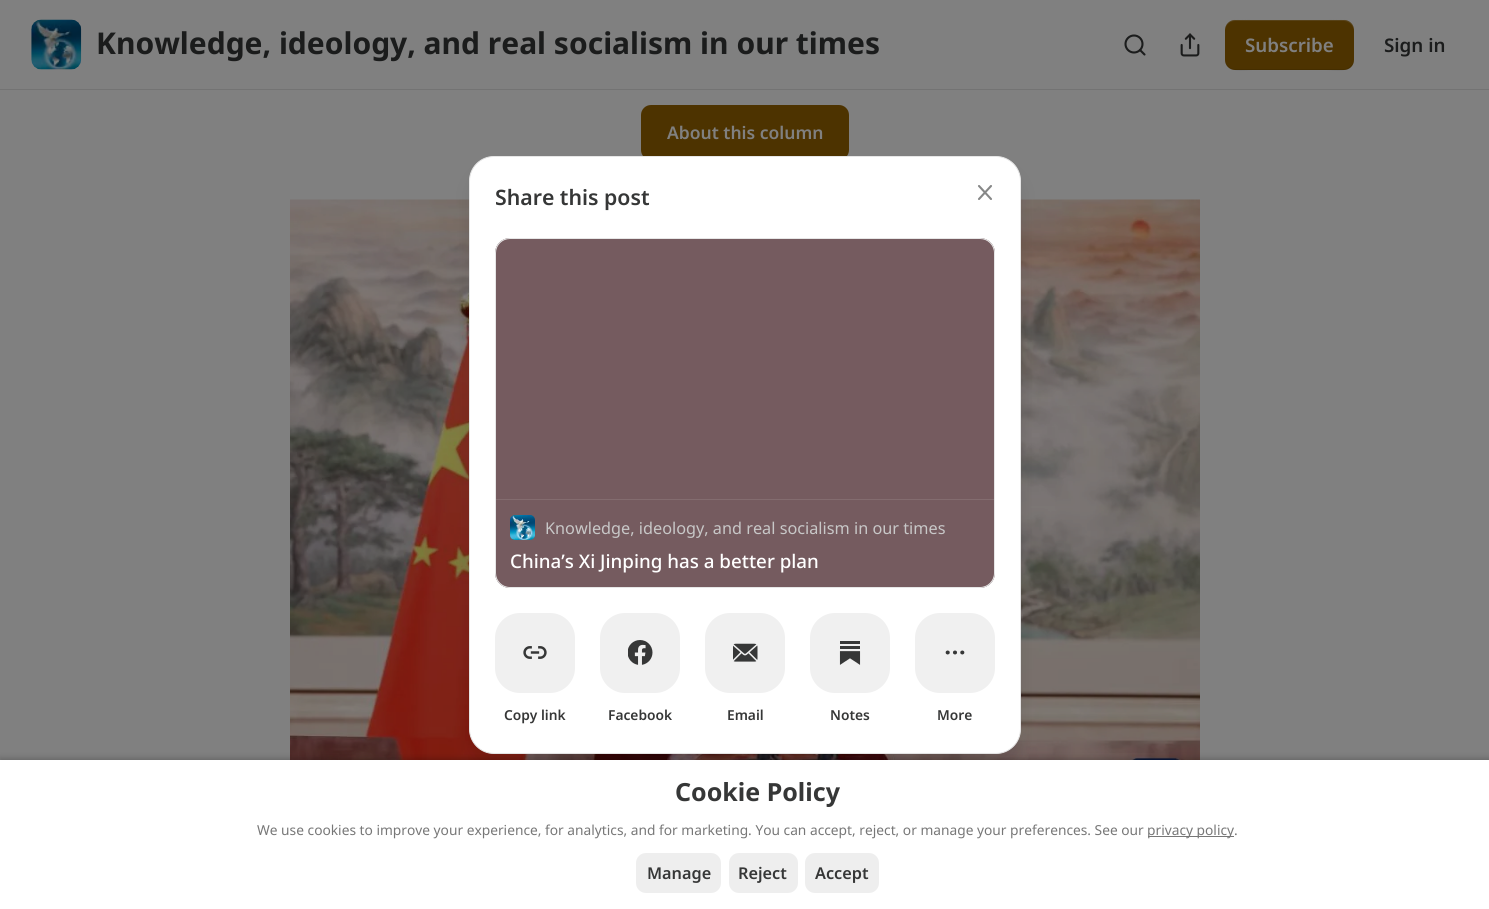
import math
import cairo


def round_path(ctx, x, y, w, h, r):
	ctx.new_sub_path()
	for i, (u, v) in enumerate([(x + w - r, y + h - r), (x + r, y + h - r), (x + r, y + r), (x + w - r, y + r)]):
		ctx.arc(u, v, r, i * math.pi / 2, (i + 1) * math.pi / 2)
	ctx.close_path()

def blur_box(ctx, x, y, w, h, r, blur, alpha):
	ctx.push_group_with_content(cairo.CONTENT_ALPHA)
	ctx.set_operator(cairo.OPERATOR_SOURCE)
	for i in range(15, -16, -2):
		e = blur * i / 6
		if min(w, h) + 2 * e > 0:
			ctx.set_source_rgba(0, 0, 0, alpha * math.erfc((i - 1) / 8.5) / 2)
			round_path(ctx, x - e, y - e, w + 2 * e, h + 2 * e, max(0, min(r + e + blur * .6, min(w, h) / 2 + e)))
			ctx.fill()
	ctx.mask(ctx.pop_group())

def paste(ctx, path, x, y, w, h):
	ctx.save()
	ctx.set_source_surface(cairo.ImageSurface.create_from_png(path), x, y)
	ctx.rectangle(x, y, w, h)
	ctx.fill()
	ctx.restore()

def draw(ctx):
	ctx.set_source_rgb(0.502, 0.502, 0.502)
	ctx.paint()
	ctx.set_source_rgb(0.451, 0.451, 0.451)
	ctx.rectangle(0, 89, 1489, 1)
	ctx.fill()
	paste(ctx, 'media/1.png', 31, 19, 51, 51)
	ctx.select_font_face('Noto Sans', cairo.FONT_SLANT_NORMAL, cairo.FONT_WEIGHT_BOLD)
	ctx.set_font_size(30)
	ctx.set_source_rgb(0.106, 0.11, 0.11)
	ctx.move_to(96, 54)
	ctx.show_text('Knowledge, ideology, and real socialism in our times')
	ctx.new_path()
	ctx.arc(1134, 44, 8.5, 0, 2 * math.pi)
	ctx.set_line_width(2.1)
	ctx.stroke()
	ctx.new_path()
	ctx.move_to(1144.5, 54.5)
	ctx.line_to(1140, 50)
	ctx.set_line_cap(cairo.LINE_CAP_ROUND)
	ctx.set_line_join(cairo.LINE_JOIN_ROUND)
	ctx.stroke()
	paste(ctx, 'media/2.png', 1180, 33, 20, 24)
	ctx.set_source_rgb(0.302, 0.2, 0)
	round_path(ctx, 1225, 20, 129, 50, 10)
	ctx.fill()
	ctx.set_source_rgba(0, 0, 0, 0.1)
	ctx.new_path()
	ctx.move_to(1225, 59)
	ctx.curve_to(1225, 74, 1243, 70, 1253, 70)
	ctx.line_to(1326, 70)
	ctx.curve_to(1336, 70, 1354, 74, 1354, 59)
	ctx.curve_to(1354, 64, 1349, 69, 1344, 69)
	ctx.line_to(1235, 69)
	ctx.curve_to(1229, 69, 1225, 64, 1225, 59)
	ctx.close_path()
	ctx.fill()
	ctx.set_source_rgba(0.502, 0.502, 0.502, 0.2)
	ctx.new_path()
	ctx.move_to(1235, 21)
	ctx.line_to(1344, 21)
	ctx.curve_to(1349, 21, 1354, 26, 1354, 31)
	ctx.curve_to(1354, 16, 1336, 20, 1326, 20)
	ctx.line_to(1253, 20)
	ctx.curve_to(1243, 20, 1225, 16, 1225, 31)
	ctx.curve_to(1225, 26, 1229, 21, 1235, 21)
	ctx.close_path()
	ctx.fill()
	ctx.select_font_face('Noto Sans SemiBold')
	ctx.set_font_size(18.75)
	ctx.set_source_rgb(0.502, 0.502, 0.502)
	ctx.move_to(1245, 52)
	ctx.show_text('Subscribe')
	ctx.set_source_rgb(0.106, 0.11, 0.11)
	ctx.move_to(1384, 52)
	ctx.show_text('Sign in')
	ctx.set_source_rgb(0.302, 0.2, 0)
	round_path(ctx, 641, 105, 208, 55, 10)
	ctx.fill()
	ctx.set_font_size(17.5)
	ctx.set_source_rgb(0.502, 0.502, 0.502)
	ctx.move_to(667, 139)
	ctx.show_text('About this column')
	paste(ctx, 'media/3.png', 290, 199, 910, 561)
	ctx.set_source_rgb(0, 0, 0)
	blur_box(ctx, 473, 173, 545, 590, 21, 9.5, 0.1)
	ctx.set_source_rgb(1, 1, 1)
	round_path(ctx, 469.5, 156.5, 551, 597, 24.5)
	ctx.fill_preserve()
	ctx.set_source_rgb(0.902, 0.902, 0.902)
	ctx.set_line_width(1)
	ctx.set_line_cap(cairo.LINE_CAP_BUTT)
	ctx.set_line_join(cairo.LINE_JOIN_MITER)
	ctx.stroke()
	ctx.set_source_rgb(0, 0, 0)
	blur_box(ctx, 0, 758, 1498, 150, 0, 3, 0.2)
	ctx.set_source_rgb(1, 1, 1)
	ctx.rectangle(0, 760, 1489, 149)
	ctx.fill()
	ctx.select_font_face('Noto Sans', cairo.FONT_SLANT_NORMAL, cairo.FONT_WEIGHT_BOLD)
	ctx.set_font_size(25)
	ctx.set_source_rgb(0.212, 0.216, 0.216)
	ctx.move_to(675, 801)
	ctx.show_text('Cookie Policy')
	ctx.select_font_face('Noto Sans')
	ctx.set_font_size(13.75)
	ctx.set_source_rgb(0.467, 0.467, 0.467)
	ctx.move_to(257, 835)
	ctx.show_text('We use cookies to improve your experience, for analytics, and for marketing. You can accept, reject, or manage your preferences. See our')
	ctx.rectangle(1148, 836, 86, 1)
	ctx.fill()
	ctx.move_to(1147, 835)
	ctx.show_text('privacy policy.')
	ctx.set_source_rgb(0.933, 0.933, 0.933)
	round_path(ctx, 636, 853, 85, 40, 10)
	ctx.fill()
	ctx.select_font_face('Noto Sans SemiBold')
	ctx.set_font_size(16.25)
	ctx.set_source_rgb(0.212, 0.216, 0.216)
	ctx.move_to(647, 879)
	ctx.show_text('Manage')
	ctx.set_source_rgb(0.933, 0.933, 0.933)
	round_path(ctx, 729, 853, 69, 40, 10)
	ctx.fill()
	ctx.set_source_rgb(0.212, 0.216, 0.216)
	ctx.move_to(738, 879)
	ctx.show_text('Reject')
	ctx.set_source_rgb(0.933, 0.933, 0.933)
	round_path(ctx, 805, 853, 74, 40, 10)
	ctx.fill()
	ctx.set_source_rgb(0.212, 0.216, 0.216)
	ctx.move_to(815, 879)
	ctx.show_text('Accept')
	ctx.set_font_size(21.25)
	ctx.move_to(495, 205)
	ctx.show_text('Share this post')
	ctx.new_path()
	ctx.move_to(991, 186)
	ctx.line_to(979, 199)
	ctx.move_to(979, 186)
	ctx.line_to(991, 199)
	ctx.set_source_rgb(0.525, 0.529, 0.529)
	ctx.set_line_width(2.1)
	ctx.set_line_cap(cairo.LINE_CAP_ROUND)
	ctx.set_line_join(cairo.LINE_JOIN_ROUND)
	ctx.stroke()
	ctx.set_source_rgb(0.941, 0.941, 0.941)
	round_path(ctx, 495, 238, 500, 350, 15)
	ctx.fill()
	ctx.set_source_rgba(0.298, 0.165, 0.184, 0.75)
	round_path(ctx, 495, 238, 500, 350, 15)
	ctx.fill()
	ctx.set_source_rgb(0.514, 0.424, 0.435)
	ctx.rectangle(495, 499, 500, 1)
	ctx.fill()
	paste(ctx, 'media/4.png', 510, 515, 25, 25)
	round_path(ctx, 495.5, 238.5, 499, 349, 14.5)
	ctx.set_source_rgb(0.902, 0.902, 0.902)
	ctx.set_line_width(1)
	ctx.set_line_cap(cairo.LINE_CAP_BUTT)
	ctx.set_line_join(cairo.LINE_JOIN_MITER)
	ctx.stroke()
	ctx.select_font_face('Noto Sans')
	ctx.set_font_size(16.25)
	ctx.set_source_rgb(0.784, 0.784, 0.784)
	ctx.move_to(545, 534)
	ctx.show_text('Knowledge, ideology, and real socialism in our times')
	ctx.select_font_face('Noto Sans Medium')
	ctx.set_font_size(18.75)
	ctx.set_source_rgb(1, 1, 1)
	ctx.move_to(510, 568)
	ctx.show_text('China’s Xi Jinping has a better plan')
	ctx.set_source_rgb(0.941, 0.941, 0.941)
	round_path(ctx, 495, 613, 80, 80, 25)
	ctx.fill()
	paste(ctx, 'media/5.png', 523, 646, 24, 13)
	ctx.select_font_face('Noto Sans SemiBold')
	ctx.set_font_size(13.75)
	ctx.set_source_rgb(0.212, 0.216, 0.216)
	ctx.move_to(504, 720)
	ctx.show_text('Copy link')
	ctx.set_source_rgb(0.941, 0.941, 0.941)
	round_path(ctx, 600, 613, 80, 80, 25)
	ctx.fill()
	paste(ctx, 'media/6.png', 628, 640, 25, 25)
	ctx.set_source_rgb(0.212, 0.216, 0.216)
	ctx.move_to(608, 720)
	ctx.show_text('Facebook')
	ctx.set_source_rgb(0.941, 0.941, 0.941)
	round_path(ctx, 705, 613, 80, 80, 25)
	ctx.fill()
	paste(ctx, 'media/7.png', 733, 643, 25, 19)
	ctx.set_source_rgb(0.212, 0.216, 0.216)
	ctx.move_to(727, 720)
	ctx.show_text('Email')
	ctx.set_source_rgb(0.941, 0.941, 0.941)
	round_path(ctx, 810, 613, 80, 80, 25)
	ctx.fill()
	paste(ctx, 'media/8.png', 839, 641, 22, 24)
	ctx.set_source_rgb(0.212, 0.216, 0.216)
	ctx.move_to(830, 720)
	ctx.show_text('Notes')
	ctx.set_source_rgb(0.941, 0.941, 0.941)
	round_path(ctx, 915, 613, 80, 80, 25)
	ctx.fill()
	ctx.arc(955, 652.5, 1, 0, 2 * math.pi)
	ctx.set_source_rgb(0.212, 0.216, 0.216)
	ctx.set_line_width(2.1)
	ctx.stroke()
	ctx.arc(962.3, 652.5, 1, 0, 2 * math.pi)
	ctx.stroke()
	ctx.arc(947.7, 652.5, 1, 0, 2 * math.pi)
	ctx.stroke()
	ctx.move_to(937, 720)
	ctx.show_text('More')


surface = cairo.ImageSurface(cairo.FORMAT_RGB24, 1489, 909)
ctx = cairo.Context(surface)
options = cairo.FontOptions()
options.set_hint_metrics(cairo.HINT_METRICS_OFF)
options.set_hint_style(cairo.HINT_STYLE_NONE)
ctx.set_font_options(options)
ctx.set_miter_limit(4)
draw(ctx)
surface.write_to_png('image.png')
